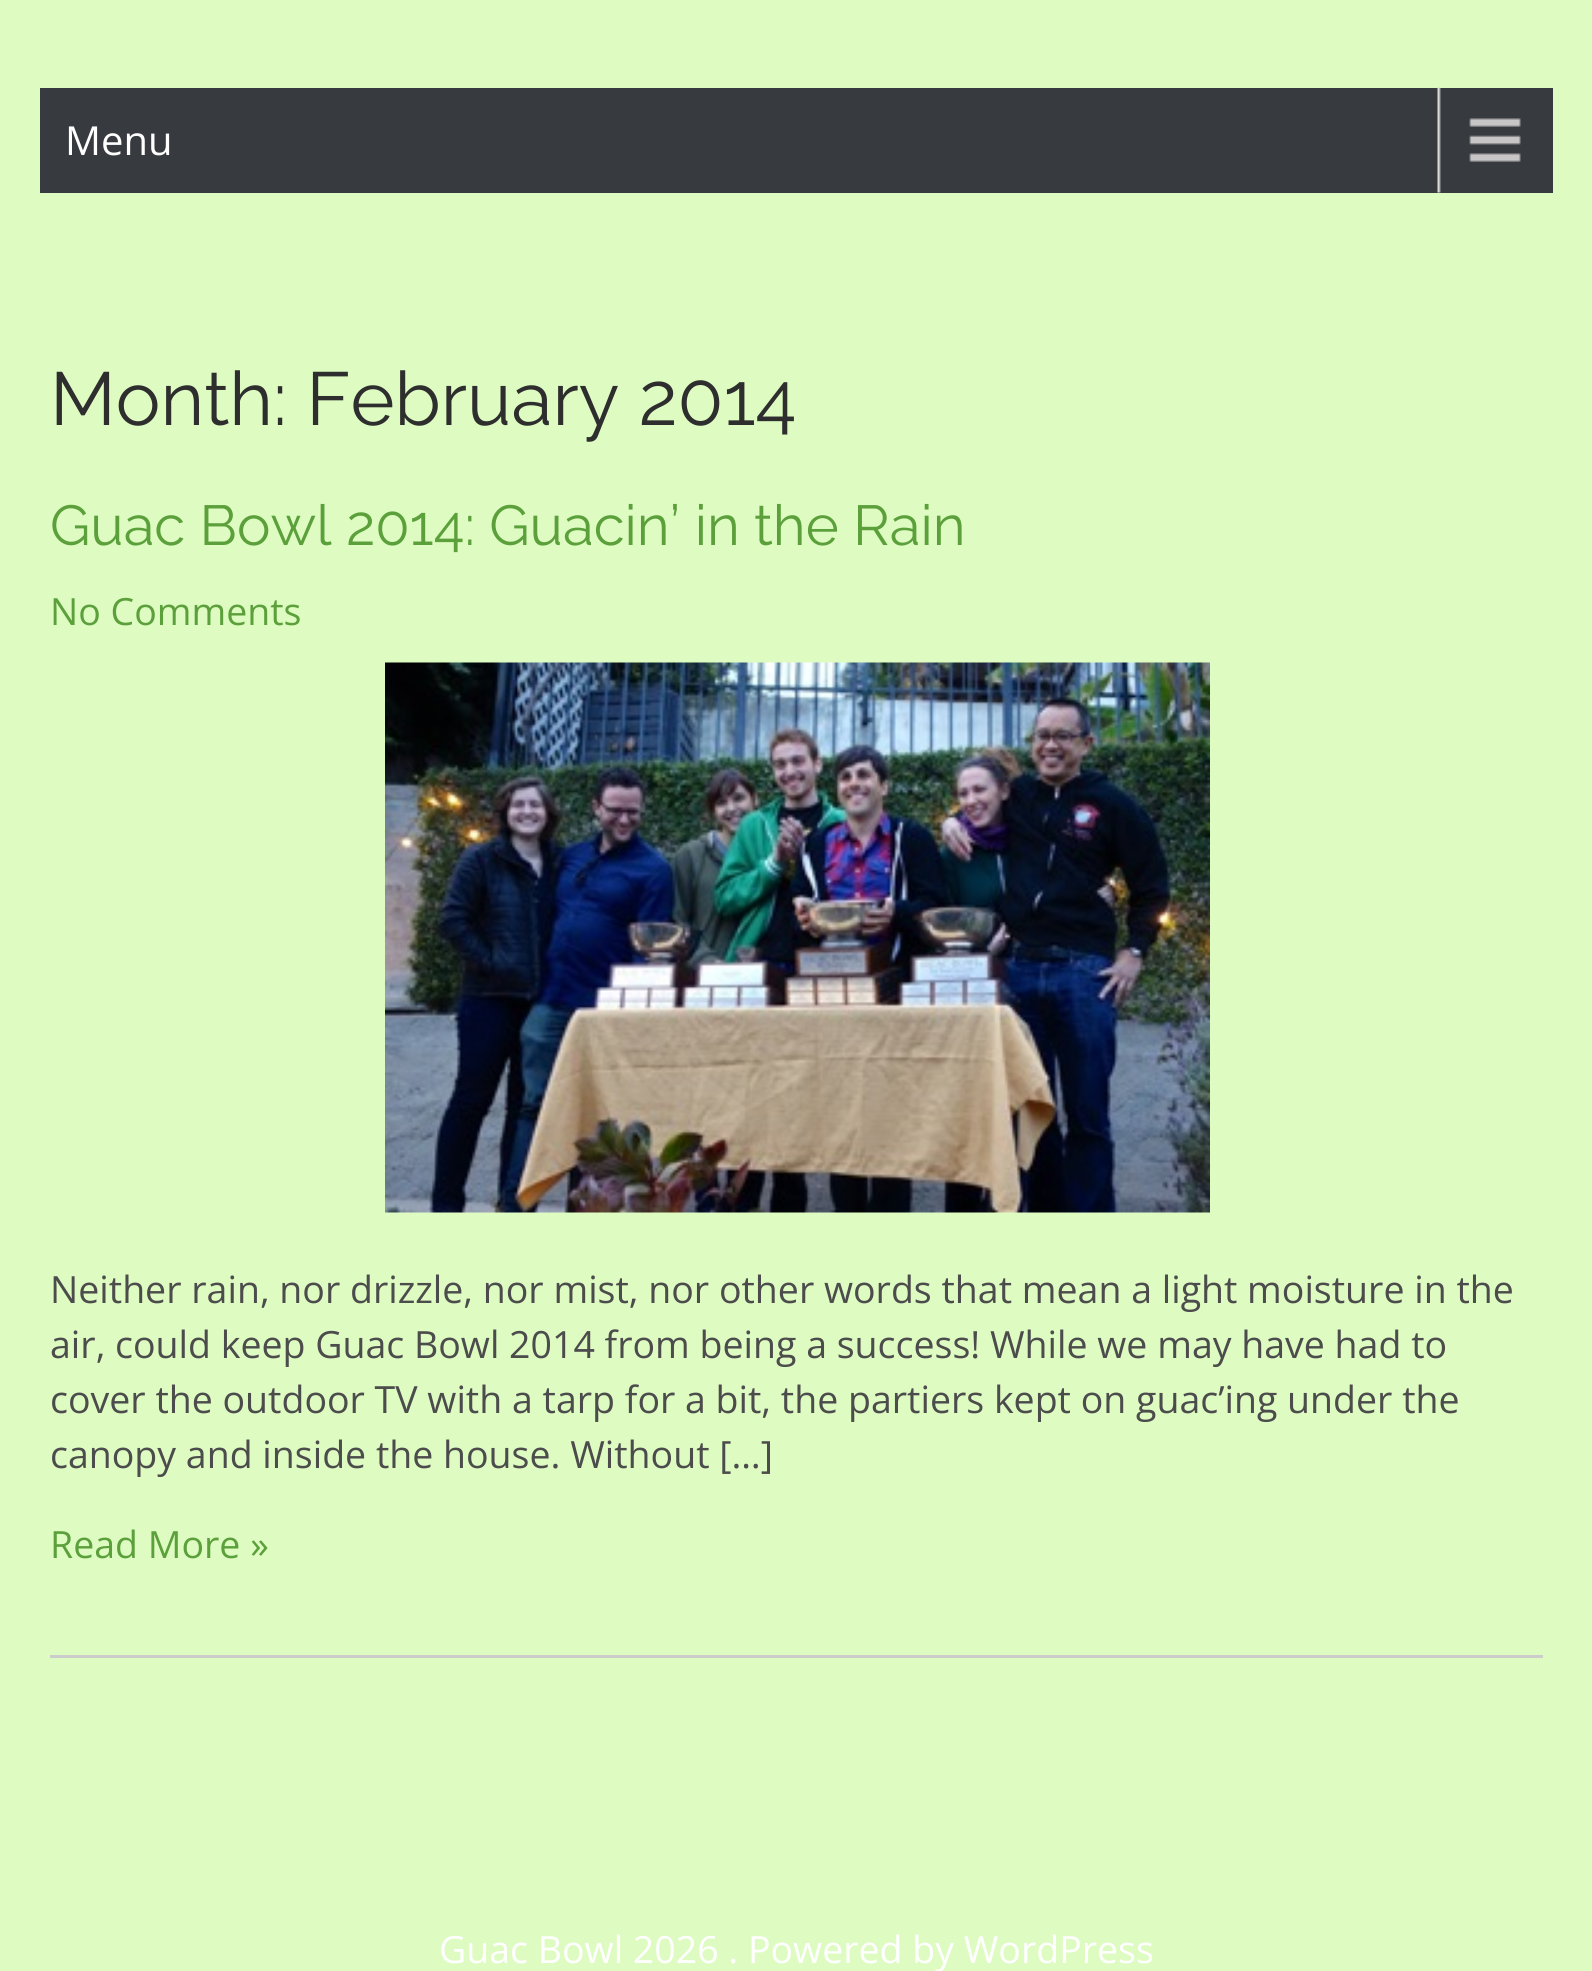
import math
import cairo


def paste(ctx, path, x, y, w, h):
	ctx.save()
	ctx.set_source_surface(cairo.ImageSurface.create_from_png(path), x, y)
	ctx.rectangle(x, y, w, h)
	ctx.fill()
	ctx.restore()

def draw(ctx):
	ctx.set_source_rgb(0.871, 0.988, 0.761)
	ctx.paint()
	ctx.set_source_rgb(0.216, 0.227, 0.247)
	ctx.rectangle(40, 88, 1513, 105)
	ctx.fill()
	paste(ctx, 'media/1.png', 1437, 87, 84, 106)
	ctx.select_font_face('Open Sans')
	ctx.set_font_size(40)
	ctx.set_source_rgb(1, 1, 1)
	ctx.move_to(65, 155)
	ctx.show_text('Menu')
	ctx.select_font_face('Raleway')
	ctx.set_font_size(75)
	ctx.set_source_rgb(0.18, 0.18, 0.18)
	ctx.move_to(50, 425)
	ctx.show_text('Month: February 2014')
	ctx.set_source_rgb(0.8, 0.8, 0.8)
	ctx.rectangle(50, 1655, 1493, 3)
	ctx.fill()
	ctx.set_font_size(56.25)
	ctx.set_source_rgb(0.357, 0.627, 0.231)
	ctx.move_to(50, 545)
	ctx.show_text('Guac Bowl 2014: Guacin’ in the Rain')
	ctx.select_font_face('Open Sans')
	ctx.set_font_size(37.5)
	ctx.move_to(50, 625)
	ctx.show_text('No Comments')
	paste(ctx, 'media/2.png', 385, 662, 825, 551)
	ctx.set_source_rgb(0.298, 0.298, 0.298)
	for x, y, s in [
		(50, 1303, 'Neither rain, nor drizzle, nor mist, nor other words that mean a light moisture in the'),
		(50, 1358, 'air, could keep Guac Bowl 2014 from being a success! While we may have had to'),
		(50, 1413, 'cover the outdoor TV with a tarp for a bit, the partiers kept on guac’ing under the'),
		(50, 1468, 'canopy and inside the house. Without […]'),
	]:
		ctx.move_to(x, y)
		ctx.show_text(s)
	ctx.set_source_rgb(0.357, 0.627, 0.231)
	ctx.move_to(50, 1558)
	ctx.show_text('Read More »')
	ctx.set_source_rgb(1, 1, 1)
	ctx.move_to(439, 1963)
	ctx.show_text('Guac Bowl 2026 . Powered by WordPress')


surface = cairo.ImageSurface(cairo.FORMAT_RGB24, 1592, 1971)
ctx = cairo.Context(surface)
options = cairo.FontOptions()
options.set_hint_metrics(cairo.HINT_METRICS_OFF)
options.set_hint_style(cairo.HINT_STYLE_NONE)
ctx.set_font_options(options)
ctx.set_miter_limit(4)
draw(ctx)
surface.write_to_png('image.png')
